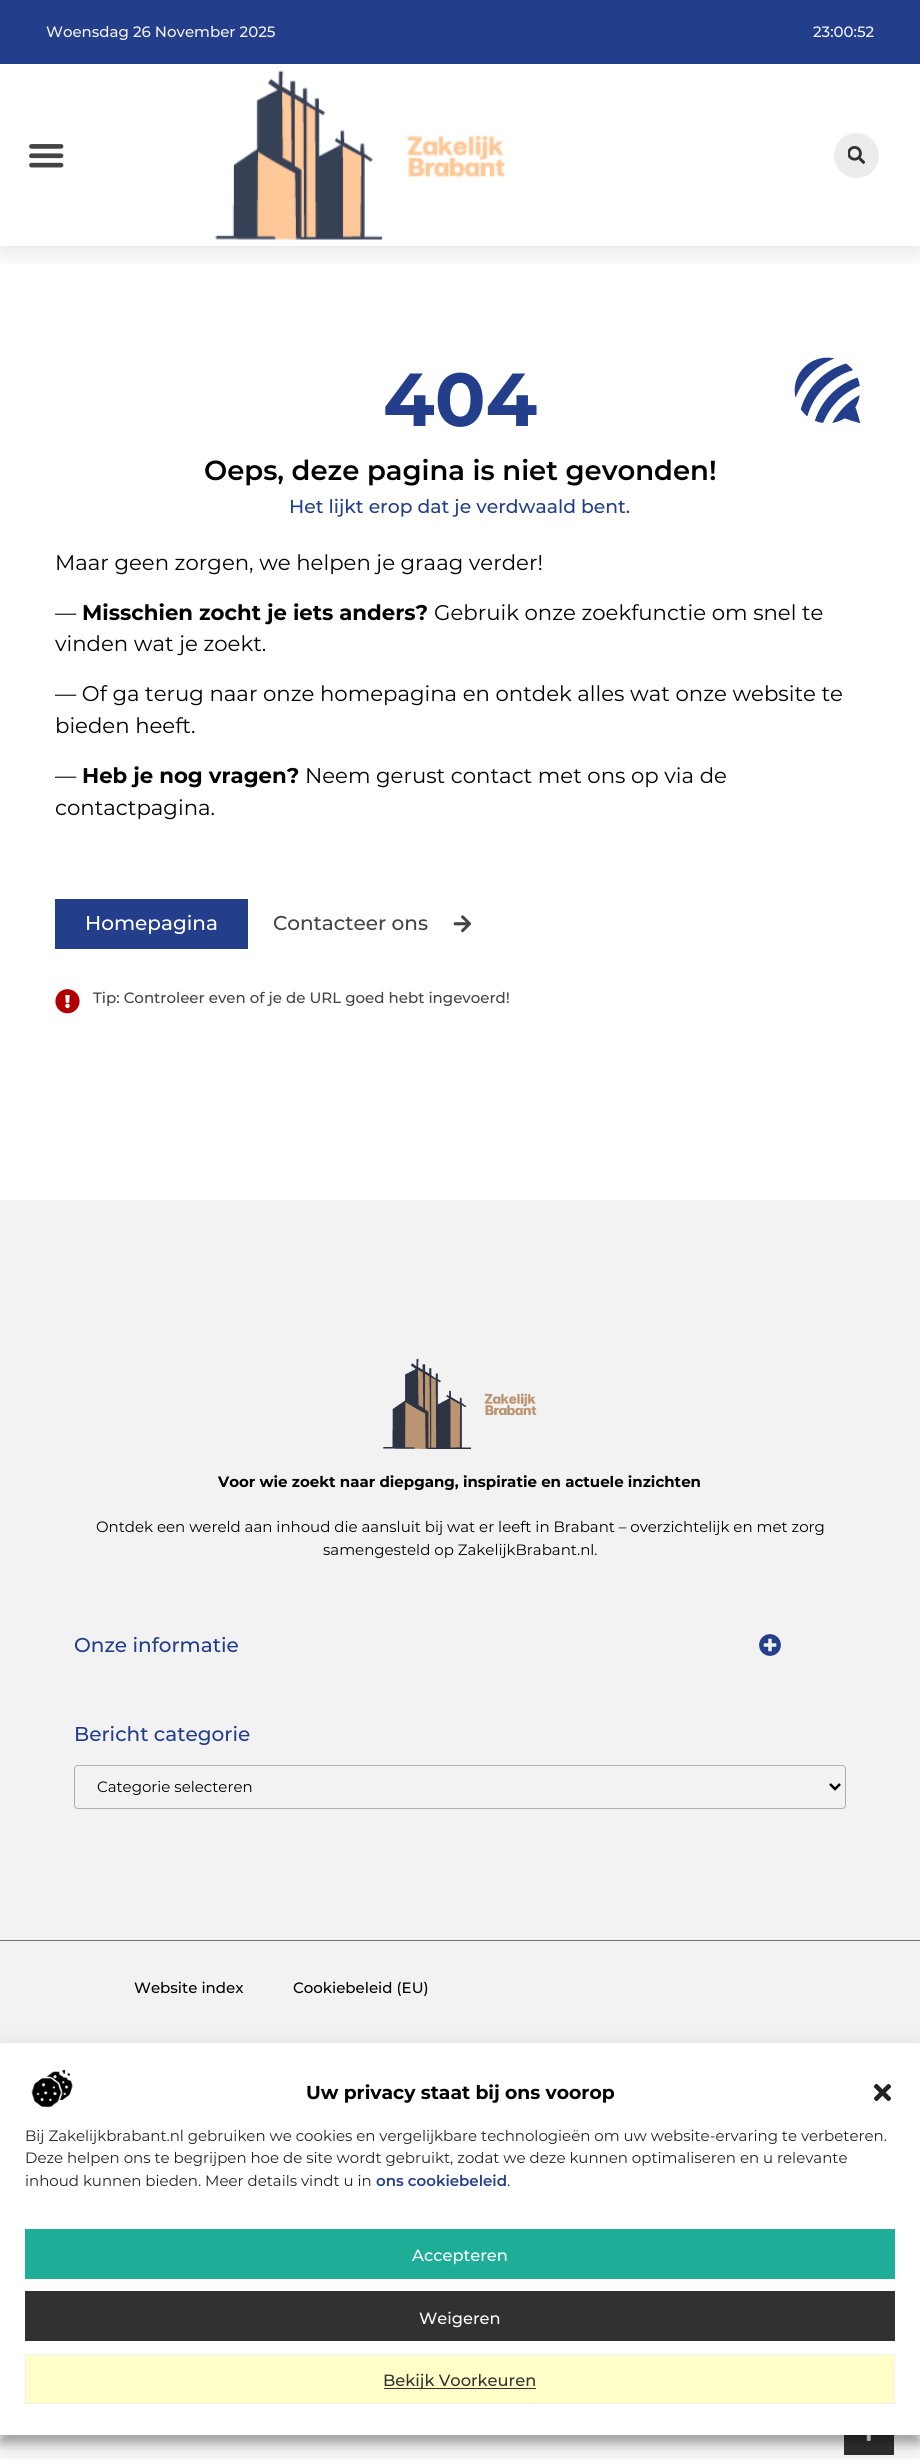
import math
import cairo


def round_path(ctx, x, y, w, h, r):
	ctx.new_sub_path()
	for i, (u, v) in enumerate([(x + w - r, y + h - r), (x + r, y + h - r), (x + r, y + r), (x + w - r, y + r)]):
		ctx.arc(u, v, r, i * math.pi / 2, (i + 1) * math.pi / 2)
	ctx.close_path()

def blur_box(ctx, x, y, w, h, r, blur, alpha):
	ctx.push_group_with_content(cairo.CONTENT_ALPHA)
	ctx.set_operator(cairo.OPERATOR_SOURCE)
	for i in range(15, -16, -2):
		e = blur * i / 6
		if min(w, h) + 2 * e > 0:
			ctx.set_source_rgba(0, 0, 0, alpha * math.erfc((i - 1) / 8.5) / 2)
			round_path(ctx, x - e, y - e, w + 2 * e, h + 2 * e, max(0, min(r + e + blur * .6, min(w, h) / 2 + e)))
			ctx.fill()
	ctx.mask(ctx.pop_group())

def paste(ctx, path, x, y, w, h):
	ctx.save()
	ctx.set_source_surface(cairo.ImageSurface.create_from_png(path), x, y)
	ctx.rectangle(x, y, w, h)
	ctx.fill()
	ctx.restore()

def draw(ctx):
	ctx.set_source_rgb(1, 1, 1)
	ctx.paint()
	ctx.save()
	ctx.rectangle(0, 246, 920, 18)
	ctx.clip()
	ctx.set_source_rgb(0, 0, 0)
	blur_box(ctx, 0, 6, 920, 247, 0, 12.5, 0.1)
	ctx.restore()
	ctx.set_source_rgb(0.137, 0.243, 0.545)
	ctx.rectangle(0, 0, 920, 64)
	ctx.fill()
	ctx.select_font_face('Montserrat Medium')
	ctx.set_font_size(15)
	ctx.set_source_rgb(0.949, 0.949, 0.949)
	ctx.move_to(46, 37)
	ctx.show_text('Woensdag 26 November 2025')
	ctx.move_to(813, 37)
	ctx.show_text('23:00:52')
	paste(ctx, 'media/1.png', 29, 144, 35, 24)
	paste(ctx, 'media/2.png', 215, 70, 290, 170)
	ctx.set_source_rgb(0.925, 0.925, 0.925)
	ctx.arc(856.5, 155.5, 22.5, 0, 2 * math.pi)
	ctx.fill()
	paste(ctx, 'media/3.png', 848, 146, 17, 18)
	ctx.set_source_rgb(0.192, 0.192, 0.192)
	ctx.rectangle(844, 2435, 50, 20)
	ctx.fill()
	paste(ctx, 'media/4.png', 866, 2435, 5, 6)
	paste(ctx, 'media/5.png', 794, 357, 67, 67)
	ctx.select_font_face('Montserrat', cairo.FONT_SLANT_NORMAL, cairo.FONT_WEIGHT_BOLD)
	ctx.set_font_size(75)
	ctx.set_source_rgb(0.137, 0.243, 0.545)
	ctx.move_to(383, 426)
	ctx.show_text('404')
	ctx.select_font_face('Montserrat SemiBold')
	ctx.set_font_size(27.5)
	ctx.set_source_rgb(0, 0, 0)
	ctx.move_to(204, 480)
	ctx.show_text('Oeps, deze pagina is niet gevonden!')
	ctx.select_font_face('Montserrat Medium')
	ctx.set_font_size(18.75)
	ctx.set_source_rgb(0.137, 0.243, 0.545)
	ctx.move_to(289, 513)
	ctx.show_text('Het lijkt erop dat je verdwaald bent.')
	ctx.select_font_face('Montserrat')
	ctx.set_font_size(21.25)
	ctx.set_source_rgb(0, 0, 0)
	ctx.move_to(55, 570)
	ctx.show_text('Maar geen zorgen, we helpen je graag verder!')
	ctx.move_to(55, 620)
	ctx.show_text('—')
	ctx.select_font_face('Montserrat', cairo.FONT_SLANT_NORMAL, cairo.FONT_WEIGHT_BOLD)
	ctx.move_to(82, 620)
	ctx.show_text('Misschien zocht je iets anders?')
	ctx.select_font_face('Montserrat')
	for x, y, s in [
		(434, 620, 'Gebruik onze zoekfunctie om snel te'),
		(55, 651, 'vinden wat je zoekt.'),
		(55, 701, '— Of ga terug naar onze homepagina en ontdek alles wat onze website te'),
		(55, 733, 'bieden heeft.'),
		(55, 783, '—'),
	]:
		ctx.move_to(x, y)
		ctx.show_text(s)
	ctx.select_font_face('Montserrat', cairo.FONT_SLANT_NORMAL, cairo.FONT_WEIGHT_BOLD)
	ctx.move_to(82, 783)
	ctx.show_text('Heb je nog vragen?')
	ctx.select_font_face('Montserrat')
	ctx.move_to(305, 783)
	ctx.show_text('Neem gerust contact met ons op via de')
	ctx.move_to(55, 815)
	ctx.show_text('contactpagina.')
	ctx.set_source_rgb(0.137, 0.243, 0.545)
	ctx.rectangle(55, 899, 193, 50)
	ctx.fill()
	ctx.select_font_face('Montserrat Medium')
	ctx.set_font_size(20)
	ctx.set_source_rgb(1, 1, 1)
	ctx.move_to(85, 930)
	ctx.show_text('Homepagina')
	ctx.set_source_rgb(0.267, 0.267, 0.267)
	ctx.move_to(273, 930)
	ctx.show_text('Contacteer ons')
	paste(ctx, 'media/6.png', 453, 915, 19, 18)
	paste(ctx, 'media/7.png', 55, 989, 25, 25)
	ctx.set_font_size(15)
	ctx.move_to(93, 1003)
	ctx.show_text('Tip: Controleer even of je de URL goed hebt ingevoerd!')
	ctx.set_source_rgb(0.949, 0.949, 0.949)
	ctx.rectangle(0, 1200, 920, 843)
	ctx.fill()
	ctx.set_source_rgb(0.447, 0.447, 0.447)
	ctx.rectangle(0, 1940, 920, 1)
	ctx.fill()
	paste(ctx, 'media/8.png', 383, 1358, 154, 91)
	ctx.select_font_face('Montserrat', cairo.FONT_SLANT_NORMAL, cairo.FONT_WEIGHT_BOLD)
	ctx.set_source_rgb(0, 0, 0)
	ctx.move_to(218, 1487)
	ctx.show_text('Voor wie zoekt naar diepgang, inspiratie en actuele inzichten')
	ctx.select_font_face('Montserrat')
	ctx.move_to(96, 1532)
	ctx.show_text('Ontdek een wereld aan inhoud die aansluit bij wat er leeft in Brabant – overzichtelijk en met zorg')
	ctx.move_to(323, 1555)
	ctx.show_text('samengesteld op ZakelijkBrabant.nl.')
	ctx.select_font_face('Montserrat Medium')
	ctx.set_font_size(20)
	ctx.set_source_rgb(0.137, 0.243, 0.545)
	ctx.move_to(74, 1652)
	ctx.show_text('Onze informatie')
	paste(ctx, 'media/9.png', 759, 1634, 22, 22)
	ctx.move_to(74, 1741)
	ctx.show_text('Bericht categorie')
	round_path(ctx, 74.5, 1765.5, 771, 43, 3.5)
	ctx.set_source_rgb(0.686, 0.686, 0.686)
	ctx.set_line_width(1)
	ctx.stroke()
	ctx.new_path()
	ctx.move_to(830, 1784)
	ctx.line_to(835, 1789)
	ctx.line_to(840, 1784)
	ctx.set_source_rgb(0, 0, 0)
	ctx.set_line_width(2.5)
	ctx.stroke()
	ctx.select_font_face('Montserrat')
	ctx.set_font_size(15)
	ctx.move_to(97, 1792)
	ctx.show_text('Categorie selecteren')
	ctx.select_font_face('Montserrat Medium')
	ctx.move_to(134, 1993)
	ctx.show_text('Website index')
	ctx.move_to(293, 1993)
	ctx.show_text('Cookiebeleid (EU)')
	ctx.set_source_rgb(0, 0, 0)
	blur_box(ctx, 0, 2050, 920, 393, 0, 4, 0.23)
	blur_box(ctx, 0, 2055, 920, 393, 0, 12.5, 0.19)
	ctx.set_source_rgb(1, 1, 1)
	ctx.rectangle(0, 2043, 920, 392)
	ctx.fill()
	paste(ctx, 'media/10.png', 31, 2070, 42, 37)
	ctx.select_font_face('Montserrat', cairo.FONT_SLANT_NORMAL, cairo.FONT_WEIGHT_BOLD)
	ctx.set_font_size(18.75)
	ctx.set_source_rgb(0, 0, 0)
	ctx.move_to(306, 2099)
	ctx.show_text('Uw privacy staat bij ons voorop')
	paste(ctx, 'media/11.png', 873, 2083, 19, 19)
	ctx.select_font_face('Montserrat')
	ctx.set_font_size(15)
	ctx.set_source_rgb(0.133, 0.133, 0.133)
	for x, y, s in [
		(25, 2141, 'Bij Zakelijkbrabant.nl gebruiken we cookies en vergelijkbare technologieën om uw website-ervaring te verbeteren.'),
		(25, 2163, 'Deze helpen ons te begrijpen hoe de site wordt gebruikt, zodat we deze kunnen optimaliseren en u relevante'),
		(25, 2186, 'inhoud kunnen bieden. Meer details vindt u in'),
	]:
		ctx.move_to(x, y)
		ctx.show_text(s)
	ctx.select_font_face('Montserrat SemiBold')
	ctx.set_source_rgb(0.137, 0.243, 0.545)
	ctx.move_to(376, 2186)
	ctx.show_text('ons cookiebeleid')
	ctx.select_font_face('Montserrat')
	ctx.set_source_rgb(0.133, 0.133, 0.133)
	ctx.move_to(507, 2186)
	ctx.show_text('.')
	ctx.set_source_rgb(0.118, 0.682, 0.596)
	ctx.rectangle(25, 2229, 870, 50)
	ctx.fill()
	ctx.select_font_face('Montserrat Medium')
	ctx.set_font_size(16.25)
	ctx.set_source_rgb(1, 1, 1)
	ctx.move_to(412, 2261)
	ctx.show_text('Accepteren')
	ctx.set_source_rgb(0.192, 0.192, 0.192)
	ctx.rectangle(25, 2291, 870, 50)
	ctx.fill()
	ctx.set_source_rgb(1, 1, 1)
	ctx.move_to(419, 2324)
	ctx.show_text('Weigeren')
	ctx.set_source_rgb(1, 1, 0.78)
	ctx.rectangle(25.5, 2354.5, 869, 49)
	ctx.fill_preserve()
	ctx.set_source_rgb(0.949, 0.949, 0.949)
	ctx.set_line_width(1)
	ctx.stroke()
	ctx.set_source_rgb(0.2, 0.2, 0.2)
	ctx.rectangle(384, 2388, 152, 1)
	ctx.fill()
	ctx.move_to(383, 2386)
	ctx.show_text('Bekijk Voorkeuren')


surface = cairo.ImageSurface(cairo.FORMAT_RGB24, 920, 2460)
ctx = cairo.Context(surface)
options = cairo.FontOptions()
options.set_hint_metrics(cairo.HINT_METRICS_OFF)
options.set_hint_style(cairo.HINT_STYLE_NONE)
ctx.set_font_options(options)
ctx.set_miter_limit(4)
draw(ctx)
surface.write_to_png('image.png')
